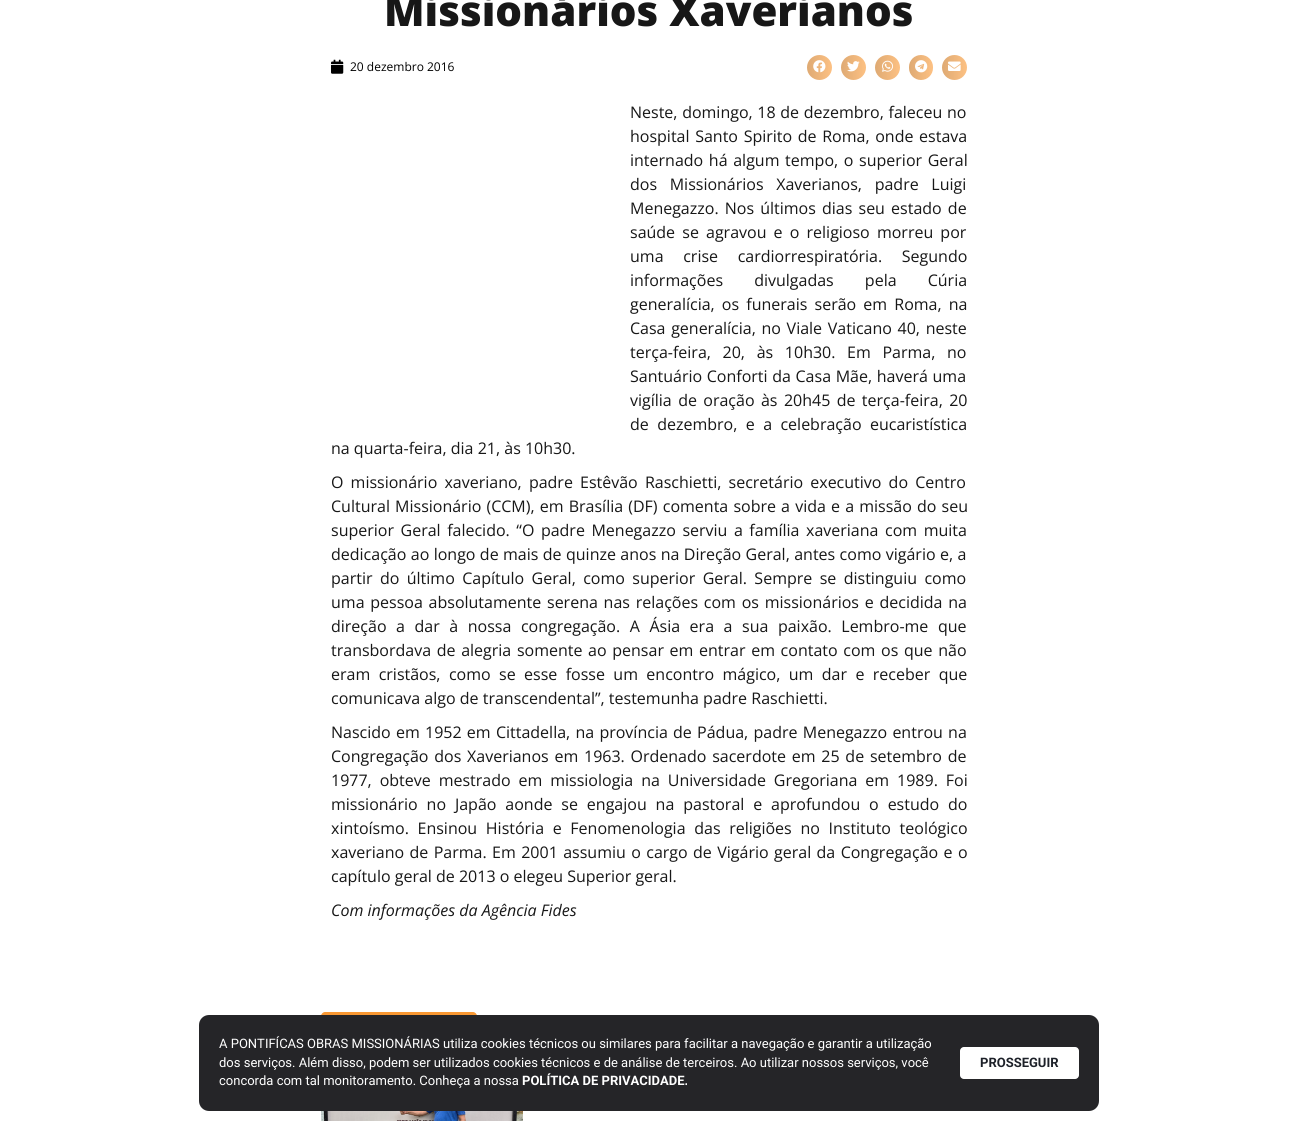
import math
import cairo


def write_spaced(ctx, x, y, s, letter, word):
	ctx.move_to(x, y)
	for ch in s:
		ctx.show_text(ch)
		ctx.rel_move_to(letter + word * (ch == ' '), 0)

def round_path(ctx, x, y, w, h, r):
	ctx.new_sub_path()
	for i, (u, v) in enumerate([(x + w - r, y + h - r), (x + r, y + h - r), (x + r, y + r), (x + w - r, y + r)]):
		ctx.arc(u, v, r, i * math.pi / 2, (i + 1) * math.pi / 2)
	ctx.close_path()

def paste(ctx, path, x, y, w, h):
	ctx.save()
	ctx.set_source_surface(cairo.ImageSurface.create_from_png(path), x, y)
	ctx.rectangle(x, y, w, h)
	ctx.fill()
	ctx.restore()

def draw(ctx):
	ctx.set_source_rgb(1, 1, 1)
	ctx.paint()
	ctx.select_font_face('Open Sans ExtraBold')
	ctx.set_font_size(42)
	ctx.set_source_rgb(0.09, 0.09, 0.09)
	ctx.move_to(384, 26)
	ctx.show_text('Missionários Xaverianos')
	paste(ctx, 'media/1.png', 331, 59, 13, 15)
	ctx.select_font_face('Open Sans')
	ctx.set_font_size(12)
	ctx.set_source_rgb(0, 0, 0)
	ctx.move_to(350, 71)
	ctx.show_text('20 dezembro 2016')
	ctx.set_source_rgb(0.992, 0.757, 0.514)
	ctx.new_path()
	ctx.arc(819.5, 67.5, 12.5, 0, 2 * math.pi)
	ctx.fill()
	gradient = cairo.LinearGradient(807, 68, 832, 68)
	gradient.add_color_stop_rgba(0, 0, 0, 0, 0.12)
	gradient.add_color_stop_rgba(1, 0, 0, 0, 0)
	ctx.set_source(gradient)
	ctx.arc(819.5, 67.5, 12.5, 0, 2 * math.pi)
	ctx.fill()
	paste(ctx, 'media/2.png', 813, 60, 13, 13)
	ctx.set_source_rgb(0.992, 0.757, 0.514)
	ctx.arc(853.5, 67.5, 12.5, 0, 2 * math.pi)
	ctx.fill()
	gradient = cairo.LinearGradient(841, 68, 866, 68)
	gradient.add_color_stop_rgba(0, 0, 0, 0, 0.12)
	gradient.add_color_stop_rgba(1, 0, 0, 0, 0)
	ctx.set_source(gradient)
	ctx.arc(853.5, 67.5, 12.5, 0, 2 * math.pi)
	ctx.fill()
	paste(ctx, 'media/3.png', 847, 61, 13, 11)
	ctx.set_source_rgb(0.992, 0.757, 0.514)
	ctx.arc(887.5, 67.5, 12.5, 0, 2 * math.pi)
	ctx.fill()
	gradient = cairo.LinearGradient(875, 68, 900, 68)
	gradient.add_color_stop_rgba(0, 0, 0, 0, 0.12)
	gradient.add_color_stop_rgba(1, 0, 0, 0, 0)
	ctx.set_source(gradient)
	ctx.arc(887.5, 67.5, 12.5, 0, 2 * math.pi)
	ctx.fill()
	paste(ctx, 'media/4.png', 882, 60, 12, 12)
	ctx.set_source_rgb(0.992, 0.757, 0.514)
	round_path(ctx, 909, 55, 24, 25, 12)
	ctx.fill()
	gradient = cairo.LinearGradient(909, 68, 933, 68)
	gradient.add_color_stop_rgba(0, 0, 0, 0, 0.12)
	gradient.add_color_stop_rgba(1, 0, 0, 0, 0)
	ctx.set_source(gradient)
	round_path(ctx, 909, 55, 24, 25, 12)
	ctx.fill()
	paste(ctx, 'media/5.png', 915, 60, 13, 13)
	ctx.set_source_rgb(0.992, 0.757, 0.514)
	ctx.arc(954.5, 67.5, 12.5, 0, 2 * math.pi)
	ctx.fill()
	gradient = cairo.LinearGradient(942, 68, 967, 68)
	gradient.add_color_stop_rgba(0, 0, 0, 0, 0.12)
	gradient.add_color_stop_rgba(1, 0, 0, 0, 0)
	ctx.set_source(gradient)
	ctx.arc(954.5, 67.5, 12.5, 0, 2 * math.pi)
	ctx.fill()
	paste(ctx, 'media/6.png', 948, 61, 13, 10)
	ctx.set_font_size(16)
	ctx.set_source_rgb(0.09, 0.09, 0.09)
	write_spaced(ctx, 630, 118, 'Neste, domingo, 18 de dezembro, faleceu no', 0, 0.5)
	write_spaced(ctx, 630, 142, 'hospital Santo Spirito de Roma, onde estava', 0, 1.5)
	write_spaced(ctx, 630, 166, 'internado há algum tempo, o superior Geral', 0, 1.5)
	write_spaced(ctx, 630, 190, 'dos Missionários Xaverianos, padre Luigi', 0, 8.5)
	write_spaced(ctx, 630, 214, 'Menegazzo. Nos últimos dias seu estado de', 0, 2)
	write_spaced(ctx, 630, 238, 'saúde se agravou e o religioso morreu por', 0, 3)
	write_spaced(ctx, 630, 262, 'uma crise cardiorrespiratória. Segundo', 0, 15.5)
	write_spaced(ctx, 630, 286, 'informações divulgadas pela Cúria', 0, 27)
	write_spaced(ctx, 630, 310, 'generalícia, os funerais serão em Roma, na', 0, 3)
	write_spaced(ctx, 630, 334, 'Casa generalícia, no Viale Vaticano 40, neste', 0, 1.5)
	write_spaced(ctx, 630, 358, 'terça-feira, 20, às 10h30. Em Parma, no', 0, 7.5)
	write_spaced(ctx, 630, 382, 'Santuário Conforti da Casa Mãe, haverá uma', 0, 0.5)
	write_spaced(ctx, 630, 406, 'vigília de oração às 20h45 de terça-feira, 20', 0, 2.25)
	write_spaced(ctx, 630, 430, 'de dezembro, e a celebração eucaristística', 0, 4.25)
	ctx.move_to(331, 454)
	ctx.show_text('na quarta-feira, dia 21, às 10h30.')
	write_spaced(ctx, 331, 488, 'O missionário xaveriano, padre Estêvão Raschietti, secretário executivo do Centro', 0, 3)
	write_spaced(ctx, 331, 512, 'Cultural Missionário (CCM), em Brasília (DF) comenta sobre a vida e a missão do seu', 0, 1)
	write_spaced(ctx, 331, 536, 'superior Geral falecido. “O padre Menegazzo serviu a família xaveriana com muita', 0, 2.4)
	write_spaced(ctx, 331, 560, 'dedicação ao longo de mais de quinze anos na Direção Geral, antes como vigário e, a', 0, 0.25)
	write_spaced(ctx, 331, 584, 'partir do último Capítulo Geral, como superior Geral. Sempre se distinguiu como', 0, 3.25)
	write_spaced(ctx, 331, 608, 'uma pessoa absolutamente serena nas relações com os missionários e decidida na', 0, 1.6)
	write_spaced(ctx, 331, 632, 'direção a dar à nossa congregação. A Ásia era a sua paixão. Lembro-me que', 0, 5.4)
	write_spaced(ctx, 331, 656, 'transbordava de alegria somente ao pensar em entrar em contato com os que não', 0, 1.5)
	write_spaced(ctx, 331, 680, 'eram cristãos, como se esse fosse um encontro mágico, um dar e receber que', 0, 4.25)
	ctx.move_to(331, 704)
	ctx.show_text('comunicava algo de transcendental”, testemunha padre Raschietti.')
	write_spaced(ctx, 331, 738, 'Nascido em 1952 em Cittadella, na província de Pádua, padre Menegazzo entrou na', 0, 1.1)
	write_spaced(ctx, 331, 762, 'Congregação dos Xaverianos em 1963. Ordenado sacerdote em 25 de setembro de', 0, 1.6)
	write_spaced(ctx, 331, 786, '1977, obteve mestrado em missiologia na Universidade Gregoriana em 1989. Foi', 0, 3.75)
	write_spaced(ctx, 331, 810, 'missionário no Japão aonde se engajou na pastoral e aprofundou o estudo do', 0, 4.75)
	write_spaced(ctx, 331, 834, 'xintoísmo. Ensinou História e Fenomenologia das religiões no Instituto teológico', 0, 4.5)
	write_spaced(ctx, 331, 858, 'xaveriano de Parma. Em 2001 assumiu o cargo de Vigário geral da Congregação e o', 0, 1.25)
	ctx.move_to(331, 882)
	ctx.show_text('capítulo geral de 2013 o elegeu Superior geral.')
	ctx.select_font_face('Open Sans', cairo.FONT_SLANT_ITALIC)
	ctx.move_to(331, 916)
	ctx.show_text('Com informações da Agência Fides')
	ctx.set_source_rgb(0.973, 0.596, 0.2)
	ctx.new_path()
	ctx.move_to(325, 1012)
	ctx.line_to(473, 1012)
	ctx.curve_to(475, 1012, 477, 1014, 477, 1016)
	ctx.line_to(477, 1048)
	ctx.line_to(321, 1048)
	ctx.line_to(321, 1016)
	ctx.curve_to(321, 1014, 323, 1012, 325, 1012)
	ctx.close_path()
	ctx.fill()
	paste(ctx, 'media/7.png', 321, 1111, 202, 10)
	ctx.set_source_rgb(0.145, 0.145, 0.157)
	round_path(ctx, 199, 1015, 900, 96, 10)
	ctx.fill()
	ctx.select_font_face('Roboto')
	ctx.set_font_size(13)
	ctx.set_source_rgb(1, 1, 1)
	for x, y, s in [
		(219, 1048, 'A PONTIFÍCAS OBRAS MISSIONÁRIAS utiliza cookies técnicos ou similares para facilitar a navegação e garantir a utilização'),
		(219, 1067, 'dos serviços. Além disso, podem ser utilizados cookies técnicos e de análise de terceiros. Ao utilizar nossos serviços, você'),
		(219, 1085, 'concorda com tal monitoramento. Conheça a nossa'),
	]:
		ctx.move_to(x, y)
		ctx.show_text(s)
	ctx.select_font_face('Roboto', cairo.FONT_SLANT_NORMAL, cairo.FONT_WEIGHT_BOLD)
	ctx.move_to(522, 1085)
	ctx.show_text('POLÍTICA DE PRIVACIDADE.')
	round_path(ctx, 960, 1047, 119, 32, 4)
	ctx.fill()
	ctx.set_source_rgb(0.114, 0.129, 0.161)
	ctx.move_to(980, 1067)
	ctx.show_text('PROSSEGUIR')


surface = cairo.ImageSurface(cairo.FORMAT_RGB24, 1298, 1121)
ctx = cairo.Context(surface)
options = cairo.FontOptions()
options.set_hint_metrics(cairo.HINT_METRICS_OFF)
options.set_hint_style(cairo.HINT_STYLE_NONE)
ctx.set_font_options(options)
ctx.set_miter_limit(4)
draw(ctx)
surface.write_to_png('image.png')
